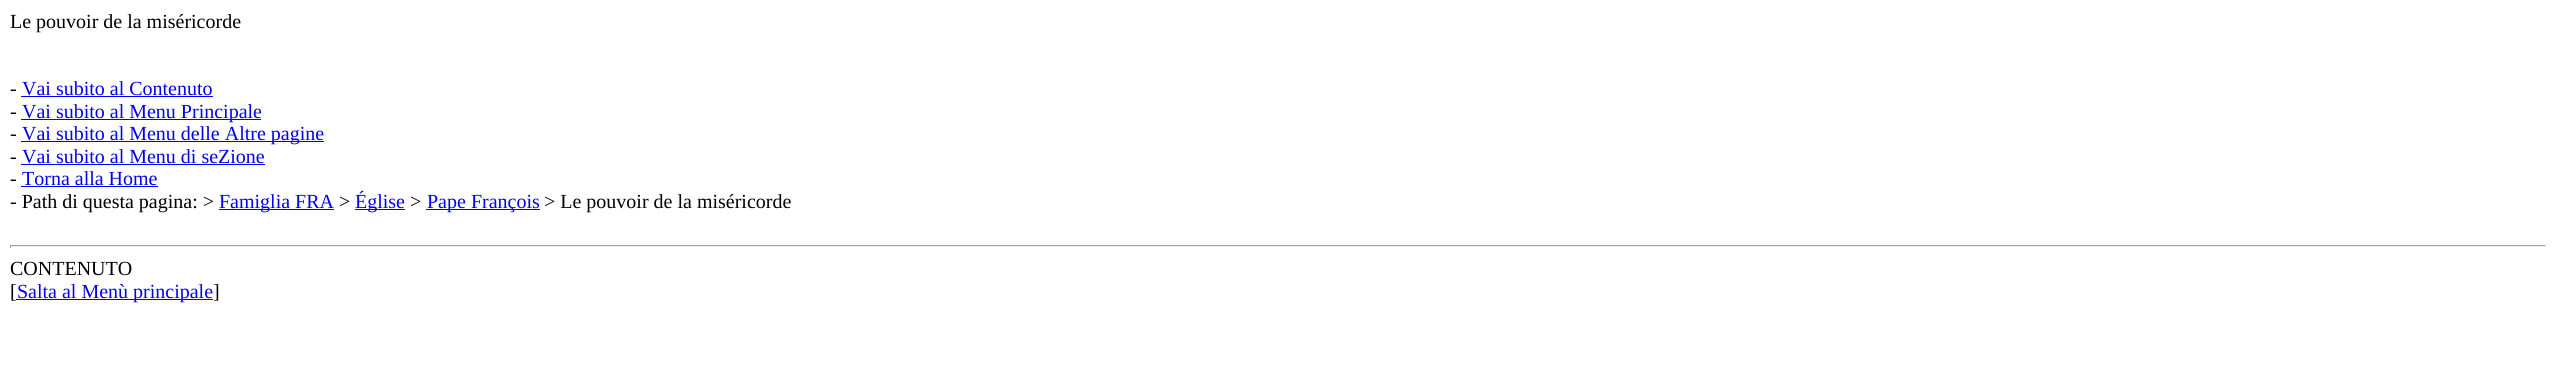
import math
import cairo


def draw(ctx):
	ctx.set_source_rgb(1, 1, 1)
	ctx.paint()
	ctx.select_font_face('Liberation Serif')
	ctx.set_font_size(20)
	ctx.set_source_rgb(0, 0, 0)
	ctx.move_to(10, 28)
	ctx.show_text('Le pouvoir de la miséricorde')
	ctx.move_to(10, 95)
	ctx.show_text('-')
	ctx.set_source_rgb(0, 0, 0.933)
	ctx.move_to(22, 95)
	ctx.show_text('Vai subito al Contenuto')
	ctx.rectangle(21, 96, 192, 1)
	ctx.fill()
	ctx.set_source_rgb(0, 0, 0)
	ctx.move_to(10, 118)
	ctx.show_text('-')
	ctx.set_source_rgb(0, 0, 0.933)
	ctx.rectangle(21, 119, 240, 1)
	ctx.fill()
	ctx.move_to(22, 118)
	ctx.show_text('Vai subito al Menu Principale')
	ctx.set_source_rgb(0, 0, 0)
	ctx.move_to(10, 140)
	ctx.show_text('-')
	ctx.set_source_rgb(0, 0, 0.933)
	ctx.rectangle(21, 141, 303, 1)
	ctx.fill()
	ctx.move_to(22, 140)
	ctx.show_text('Vai subito al Menu delle Altre pagine')
	ctx.set_source_rgb(0, 0, 0)
	ctx.move_to(10, 163)
	ctx.show_text('-')
	ctx.set_source_rgb(0, 0, 0.933)
	ctx.move_to(22, 163)
	ctx.show_text('Vai subito al Menu di seZione')
	ctx.rectangle(21, 164, 244, 1)
	ctx.fill()
	ctx.set_source_rgb(0, 0, 0)
	ctx.move_to(10, 185)
	ctx.show_text('-')
	ctx.set_source_rgb(0, 0, 0.933)
	ctx.move_to(22, 185)
	ctx.show_text('Torna alla Home')
	ctx.rectangle(21, 186, 137, 1)
	ctx.fill()
	ctx.set_source_rgb(0, 0, 0)
	ctx.move_to(10, 208)
	ctx.show_text('- Path di questa pagina: >')
	ctx.set_source_rgb(0, 0, 0.933)
	ctx.rectangle(219, 209, 115, 1)
	ctx.fill()
	ctx.move_to(219, 208)
	ctx.show_text('Famiglia FRA')
	ctx.set_source_rgb(0, 0, 0)
	ctx.move_to(339, 208)
	ctx.show_text('>')
	ctx.set_source_rgb(0, 0, 0.933)
	ctx.rectangle(355, 209, 50, 1)
	ctx.fill()
	ctx.move_to(355, 208)
	ctx.show_text('Église')
	ctx.set_source_rgb(0, 0, 0)
	ctx.move_to(410, 208)
	ctx.show_text('>')
	ctx.set_source_rgb(0, 0, 0.933)
	ctx.rectangle(426, 209, 114, 1)
	ctx.fill()
	ctx.move_to(427, 208)
	ctx.show_text('Pape François')
	ctx.set_source_rgb(0, 0, 0)
	ctx.move_to(544, 208)
	ctx.show_text('> Le pouvoir de la miséricorde')
	ctx.set_source_rgb(0.624, 0.624, 0.624)
	ctx.rectangle(10, 245, 2536, 1)
	ctx.fill()
	ctx.set_source_rgb(0.933, 0.933, 0.933)
	ctx.rectangle(2545, 245, 1, 3)
	ctx.rectangle(10, 246, 2536, 1)
	ctx.fill()
	ctx.set_source_rgb(0.624, 0.624, 0.624)
	ctx.rectangle(10, 245, 1, 3)
	ctx.fill()
	ctx.set_source_rgb(0, 0, 0)
	ctx.move_to(10, 275)
	ctx.show_text('CONTENUTO')
	ctx.move_to(10, 298)
	ctx.show_text('[')
	ctx.set_source_rgb(0, 0, 0.933)
	ctx.rectangle(16, 299, 197, 1)
	ctx.fill()
	ctx.move_to(17, 298)
	ctx.show_text('Salta al Menù principale')
	ctx.set_source_rgb(0, 0, 0)
	ctx.move_to(213, 298)
	ctx.show_text(']')


surface = cairo.ImageSurface(cairo.FORMAT_RGB24, 2556, 378)
ctx = cairo.Context(surface)
options = cairo.FontOptions()
options.set_hint_metrics(cairo.HINT_METRICS_OFF)
options.set_hint_style(cairo.HINT_STYLE_NONE)
ctx.set_font_options(options)
ctx.set_miter_limit(4)
draw(ctx)
surface.write_to_png('image.png')
